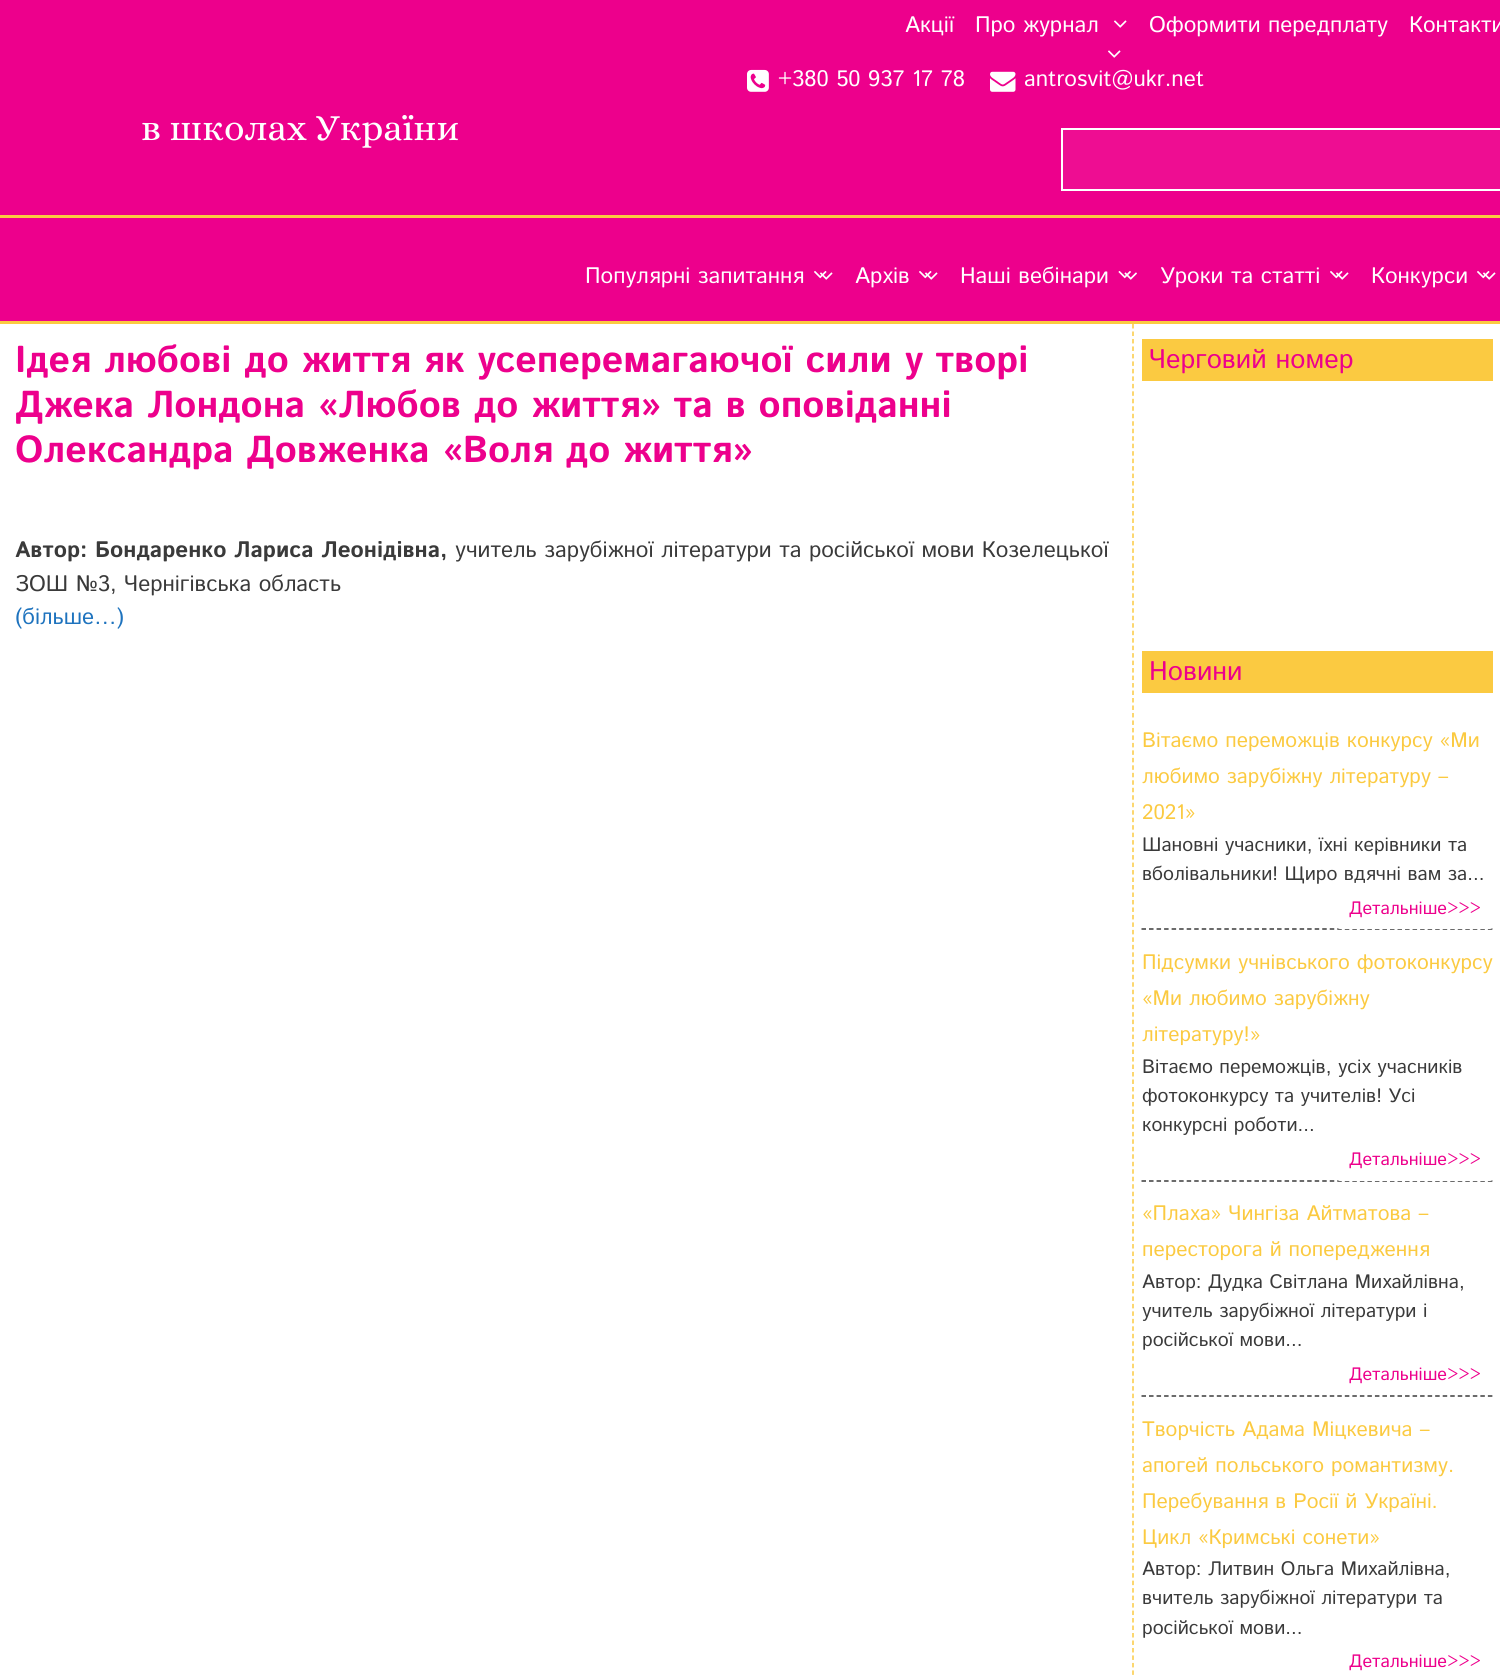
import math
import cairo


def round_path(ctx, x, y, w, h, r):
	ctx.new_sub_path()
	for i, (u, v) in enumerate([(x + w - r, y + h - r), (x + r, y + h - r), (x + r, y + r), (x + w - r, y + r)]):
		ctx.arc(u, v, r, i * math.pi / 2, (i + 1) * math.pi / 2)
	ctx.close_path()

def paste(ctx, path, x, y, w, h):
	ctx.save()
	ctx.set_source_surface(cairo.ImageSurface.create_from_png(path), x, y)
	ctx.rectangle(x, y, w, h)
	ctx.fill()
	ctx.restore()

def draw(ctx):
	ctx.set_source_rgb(1, 1, 1)
	ctx.paint()
	ctx.set_source_rgb(0.929, 0, 0.549)
	ctx.rectangle(0, 0, 1500, 215)
	ctx.fill()
	ctx.set_source_rgb(0.984, 0.792, 0.255)
	ctx.rectangle(0, 215, 1500, 3)
	ctx.fill()
	ctx.select_font_face('Istok Web')
	ctx.set_font_size(22.5)
	ctx.set_source_rgb(1, 1, 1)
	ctx.move_to(905, 32)
	ctx.show_text('Акції')
	ctx.move_to(975, 32)
	ctx.show_text('Про журнал')
	paste(ctx, 'media/1.png', 1114, 20, 13, 8)
	paste(ctx, 'media/1.png', 1108, 50, 13, 8)
	ctx.move_to(1149, 32)
	ctx.show_text('Оформити передплату')
	ctx.move_to(1409, 32)
	ctx.show_text('Контакти')
	paste(ctx, 'media/2.png', 747, 69, 22, 23)
	ctx.move_to(778, 86)
	ctx.show_text('+380 50 937 17 78')
	paste(ctx, 'media/3.png', 990, 71, 26, 21)
	ctx.move_to(1024, 86)
	ctx.show_text('antrosvit@ukr.net')
	ctx.set_source_rgb(0.933, 0.051, 0.573)
	ctx.rectangle(1062, 129, 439, 61)
	ctx.fill_preserve()
	ctx.set_source_rgb(1, 1, 1)
	ctx.stroke()
	ctx.select_font_face('Alice')
	ctx.set_font_size(37.5)
	ctx.move_to(141, 140)
	ctx.show_text('в школах України')
	ctx.set_source_rgb(0.929, 0, 0.549)
	ctx.rectangle(0, 218, 1500, 103)
	ctx.fill()
	ctx.set_source_rgb(0.984, 0.792, 0.255)
	ctx.rectangle(0, 321, 1500, 3)
	ctx.fill()
	ctx.select_font_face('Istok Web')
	ctx.set_font_size(22.5)
	ctx.set_source_rgb(1, 1, 1)
	ctx.move_to(585, 283)
	ctx.show_text('Популярні запитання')
	paste(ctx, 'media/1.png', 820, 272, 13, 8)
	paste(ctx, 'media/4.png', 814, 271, 13, 8)
	ctx.move_to(855, 283)
	ctx.show_text('Архів')
	paste(ctx, 'media/1.png', 925, 272, 13, 8)
	paste(ctx, 'media/4.png', 919, 271, 13, 8)
	ctx.move_to(960, 283)
	ctx.show_text('Наші вебінари')
	paste(ctx, 'media/6.png', 1124, 272, 13, 8)
	paste(ctx, 'media/5.png', 1118, 271, 13, 8)
	ctx.move_to(1160, 283)
	ctx.show_text('Уроки та статті')
	paste(ctx, 'media/1.png', 1336, 272, 13, 8)
	paste(ctx, 'media/4.png', 1330, 271, 13, 8)
	ctx.move_to(1371, 283)
	ctx.show_text('Конкурси')
	paste(ctx, 'media/1.png', 1483, 272, 13, 8)
	paste(ctx, 'media/4.png', 1477, 271, 13, 8)
	ctx.select_font_face('Istok Web', cairo.FONT_SLANT_NORMAL, cairo.FONT_WEIGHT_BOLD)
	ctx.set_font_size(37.5)
	ctx.set_source_rgb(0.929, 0, 0.549)
	for x, y, s in [
		(15, 372, 'Ідея любові до життя як усеперемагаючої сили у творі'),
		(15, 417, 'Джека Лондона «Любов до життя» та в оповіданні'),
		(15, 462, 'Олександра Довженка «Воля до життя»'),
	]:
		ctx.move_to(x, y)
		ctx.show_text(s)
	ctx.set_font_size(22.5)
	ctx.set_source_rgb(0.227, 0.227, 0.227)
	ctx.move_to(15, 557)
	ctx.show_text('Автор: Бондаренко Лариса Леонідівна,')
	ctx.select_font_face('Istok Web')
	ctx.move_to(455, 557)
	ctx.show_text('учитель зарубіжної літератури та російської мови Козелецької')
	ctx.move_to(15, 591)
	ctx.show_text('ЗОШ №3, Чернігівська область')
	ctx.set_source_rgb(0.118, 0.451, 0.745)
	ctx.move_to(15, 624)
	ctx.show_text('(більше…)')
	ctx.new_path()
	ctx.move_to(1133, 324)
	ctx.line_to(1133, 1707)
	ctx.set_source_rgb(0.984, 0.792, 0.255)
	ctx.set_line_width(1.5)
	ctx.set_dash([4.5, 2.98])
	ctx.stroke()
	ctx.rectangle(1142, 339, 351, 42)
	ctx.fill()
	ctx.set_font_size(27)
	ctx.set_source_rgb(0.929, 0, 0.549)
	ctx.move_to(1149, 368)
	ctx.show_text('Черговий номер')
	ctx.set_source_rgb(0.984, 0.792, 0.255)
	ctx.rectangle(1142, 651, 351, 42)
	ctx.fill()
	ctx.set_source_rgb(0.929, 0, 0.549)
	ctx.move_to(1149, 680)
	ctx.show_text('Новини')
	ctx.new_path()
	ctx.move_to(1141.5, 929)
	ctx.line_to(1492.5, 929)
	ctx.set_source_rgb(0.227, 0.227, 0.227)
	ctx.set_dash([4.5, 3.03])
	ctx.stroke()
	ctx.set_font_size(21)
	ctx.set_source_rgb(0.984, 0.792, 0.255)
	for x, y, s in [
		(1142, 747, 'Вітаємо переможців конкурсу «Ми'),
		(1142, 783, 'любимо зарубіжну літературу –'),
		(1142, 819, '2021»'),
	]:
		ctx.move_to(x, y)
		ctx.show_text(s)
	ctx.set_font_size(19.5)
	ctx.set_source_rgb(0.227, 0.227, 0.227)
	ctx.move_to(1142, 851)
	ctx.show_text('Шановні учасники, їхні керівники та')
	ctx.move_to(1142, 880)
	ctx.show_text('вболівальники! Щиро вдячні вам за...')
	ctx.set_source_rgb(1, 1, 1)
	round_path(ctx, 1337, 890, 156, 39, 3)
	ctx.fill()
	ctx.set_font_size(18)
	ctx.set_source_rgb(0.929, 0, 0.549)
	ctx.move_to(1349, 914)
	ctx.show_text('Детальніше>>>')
	ctx.new_path()
	ctx.move_to(1141.5, 1181)
	ctx.line_to(1492.5, 1181)
	ctx.set_source_rgb(0.227, 0.227, 0.227)
	ctx.stroke()
	ctx.set_font_size(21)
	ctx.set_source_rgb(0.984, 0.792, 0.255)
	for x, y, s in [
		(1142, 969, 'Підсумки учнівського фотоконкурсу'),
		(1142, 1005, '«Ми любимо зарубіжну'),
		(1142, 1041, 'літературу!»'),
	]:
		ctx.move_to(x, y)
		ctx.show_text(s)
	ctx.set_font_size(19.5)
	ctx.set_source_rgb(0.227, 0.227, 0.227)
	for x, y, s in [
		(1142, 1073, 'Вітаємо переможців, усіх учасників'),
		(1142, 1102, 'фотоконкурсу та учителів! Усі'),
		(1142, 1131, 'конкурсні роботи...'),
	]:
		ctx.move_to(x, y)
		ctx.show_text(s)
	ctx.set_source_rgb(1, 1, 1)
	round_path(ctx, 1337, 1142, 156, 39, 3)
	ctx.fill()
	ctx.set_font_size(18)
	ctx.set_source_rgb(0.929, 0, 0.549)
	ctx.move_to(1349, 1165)
	ctx.show_text('Детальніше>>>')
	ctx.new_path()
	ctx.move_to(1141.5, 1396)
	ctx.line_to(1492.5, 1396)
	ctx.set_source_rgb(0.227, 0.227, 0.227)
	ctx.stroke()
	ctx.set_font_size(21)
	ctx.set_source_rgb(0.984, 0.792, 0.255)
	ctx.move_to(1142, 1220)
	ctx.show_text('«Плаха» Чингіза Айтматова –')
	ctx.move_to(1142, 1256)
	ctx.show_text('пересторога й попередження')
	ctx.set_font_size(19.5)
	ctx.set_source_rgb(0.227, 0.227, 0.227)
	for x, y, s in [
		(1142, 1288, 'Автор: Дудка Світлана Михайлівна,'),
		(1142, 1317, 'учитель зарубіжної літератури і'),
		(1142, 1346, 'російської мови...'),
	]:
		ctx.move_to(x, y)
		ctx.show_text(s)
	ctx.set_font_size(18)
	ctx.set_source_rgb(0.929, 0, 0.549)
	ctx.move_to(1349, 1380)
	ctx.show_text('Детальніше>>>')
	ctx.set_font_size(21)
	ctx.set_source_rgb(0.984, 0.792, 0.255)
	for x, y, s in [
		(1142, 1436, 'Творчість Адама Міцкевича –'),
		(1142, 1472, 'апогей польського романтизму.'),
		(1142, 1508, 'Перебування в Росії й Україні.'),
		(1142, 1544, 'Цикл «Кримські сонети»'),
	]:
		ctx.move_to(x, y)
		ctx.show_text(s)
	ctx.set_font_size(19.5)
	ctx.set_source_rgb(0.227, 0.227, 0.227)
	for x, y, s in [
		(1142, 1575, 'Автор: Литвин Ольга Михайлівна,'),
		(1142, 1604, 'вчитель зарубіжної літератури та'),
		(1142, 1634, 'російської мови...'),
	]:
		ctx.move_to(x, y)
		ctx.show_text(s)
	ctx.set_font_size(18)
	ctx.set_source_rgb(0.929, 0, 0.549)
	ctx.move_to(1349, 1667)
	ctx.show_text('Детальніше>>>')


surface = cairo.ImageSurface(cairo.FORMAT_RGB24, 1500, 1676)
ctx = cairo.Context(surface)
options = cairo.FontOptions()
options.set_hint_metrics(cairo.HINT_METRICS_OFF)
options.set_hint_style(cairo.HINT_STYLE_NONE)
ctx.set_font_options(options)
ctx.set_miter_limit(4)
draw(ctx)
surface.write_to_png('image.png')
